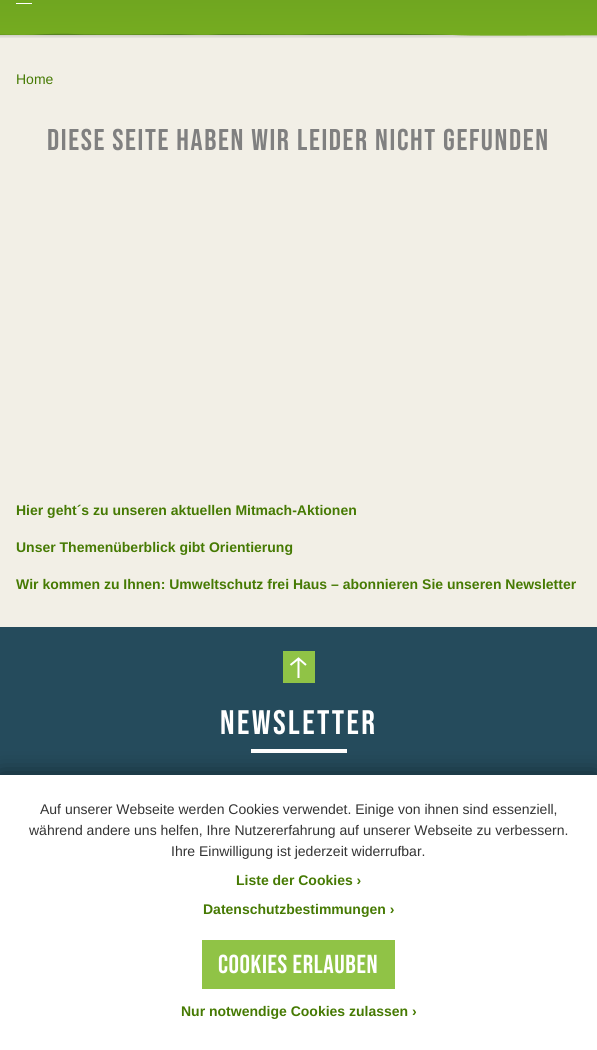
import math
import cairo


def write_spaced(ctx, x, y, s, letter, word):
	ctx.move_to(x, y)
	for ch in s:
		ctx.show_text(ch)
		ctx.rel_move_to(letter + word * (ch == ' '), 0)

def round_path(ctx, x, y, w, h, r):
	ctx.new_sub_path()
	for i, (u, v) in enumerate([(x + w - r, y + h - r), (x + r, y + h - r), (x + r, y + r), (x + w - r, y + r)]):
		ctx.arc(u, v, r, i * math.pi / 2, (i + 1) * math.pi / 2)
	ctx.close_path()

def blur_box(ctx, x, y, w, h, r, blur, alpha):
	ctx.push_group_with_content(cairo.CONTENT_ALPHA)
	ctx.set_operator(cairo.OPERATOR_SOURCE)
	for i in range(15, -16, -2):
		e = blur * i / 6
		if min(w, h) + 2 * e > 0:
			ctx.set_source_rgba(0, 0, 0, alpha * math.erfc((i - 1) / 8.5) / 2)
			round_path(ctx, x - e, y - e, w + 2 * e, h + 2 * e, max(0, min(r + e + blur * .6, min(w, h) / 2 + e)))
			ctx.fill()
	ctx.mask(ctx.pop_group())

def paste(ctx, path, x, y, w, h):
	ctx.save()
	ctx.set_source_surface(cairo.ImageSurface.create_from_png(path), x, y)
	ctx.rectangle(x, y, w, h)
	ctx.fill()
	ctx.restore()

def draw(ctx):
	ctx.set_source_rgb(0.949, 0.937, 0.902)
	ctx.paint()
	ctx.set_source_rgb(0.384, 0.6, 0.122)
	ctx.rectangle(0, 33, 452, 2)
	ctx.fill()
	paste(ctx, 'media/1.png', 0, 0, 597, 38)
	ctx.set_source_rgb(1, 1, 1)
	ctx.rectangle(16, 3, 16, 1)
	ctx.fill()
	ctx.select_font_face('Liberation Sans')
	ctx.set_font_size(14)
	ctx.set_source_rgb(0.275, 0.478, 0.012)
	ctx.move_to(16, 84)
	ctx.show_text('Home')
	ctx.select_font_face('Bebas Neue')
	ctx.set_font_size(30)
	ctx.set_source_rgb(0.502, 0.502, 0.502)
	write_spaced(ctx, 47, 150, 'DIESE SEITE HABEN WIR LEIDER NICHT GEFUNDEN', 1.6, 0)
	ctx.select_font_face('Liberation Sans', cairo.FONT_SLANT_NORMAL, cairo.FONT_WEIGHT_BOLD)
	ctx.set_font_size(14)
	ctx.set_source_rgb(0.275, 0.478, 0.012)
	for x, y, s in [
		(16, 515, 'Hier geht´s zu unseren aktuellen Mitmach-Aktionen'),
		(16, 552, 'Unser Themenüberblick gibt Orientierung'),
		(16, 589, 'Wir kommen zu Ihnen: Umweltschutz frei Haus – abonnieren Sie unseren Newsletter'),
	]:
		ctx.move_to(x, y)
		ctx.show_text(s)
	ctx.set_source_rgb(0.145, 0.294, 0.361)
	ctx.rectangle(0, 627, 597, 148)
	ctx.fill()
	ctx.set_source_rgb(0.565, 0.765, 0.275)
	ctx.rectangle(283, 651, 32, 32)
	ctx.fill()
	ctx.new_path()
	ctx.move_to(298.5, 678)
	ctx.line_to(298.5, 658)
	ctx.move_to(290.5, 665)
	ctx.line_to(298.5, 658.5)
	ctx.line_to(306, 665)
	ctx.set_source_rgb(1, 1, 1)
	ctx.stroke()
	ctx.select_font_face('Bebas Neue')
	ctx.set_font_size(34)
	write_spaced(ctx, 220, 734, 'NEWSLETTER', 2.4, 0)
	ctx.rectangle(251, 749, 96, 4)
	ctx.fill()
	ctx.set_source_rgb(0, 0, 0)
	blur_box(ctx, 0, 777, 597, 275, 0, 12, 0.6)
	ctx.set_source_rgb(1, 1, 1)
	ctx.rectangle(0, 775, 597, 275)
	ctx.fill()
	ctx.select_font_face('Liberation Sans')
	ctx.set_font_size(14)
	ctx.set_source_rgb(0.2, 0.2, 0.2)
	for x, y, s in [
		(40, 814, 'Auf unserer Webseite werden Cookies verwendet. Einige von ihnen sind essenziell,'),
		(29, 835, 'während andere uns helfen, Ihre Nutzererfahrung auf unserer Webseite zu verbessern.'),
		(171, 856, 'Ihre Einwilligung ist jederzeit widerrufbar.'),
	]:
		ctx.move_to(x, y)
		ctx.show_text(s)
	ctx.select_font_face('Liberation Sans', cairo.FONT_SLANT_NORMAL, cairo.FONT_WEIGHT_BOLD)
	ctx.set_source_rgb(0.275, 0.478, 0.012)
	ctx.move_to(236, 885)
	ctx.show_text('Liste der Cookies ›')
	ctx.move_to(203, 914)
	ctx.show_text('Datenschutzbestimmungen ›')
	ctx.set_source_rgb(0.565, 0.765, 0.275)
	ctx.rectangle(202, 940, 193, 49)
	ctx.fill()
	ctx.select_font_face('Bebas Neue')
	ctx.set_font_size(26)
	ctx.set_source_rgb(1, 1, 1)
	write_spaced(ctx, 218, 973, 'COOKIES ERLAUBEN', 0.6, 0)
	ctx.select_font_face('Liberation Sans', cairo.FONT_SLANT_NORMAL, cairo.FONT_WEIGHT_BOLD)
	ctx.set_font_size(14)
	ctx.set_source_rgb(0.275, 0.478, 0.012)
	ctx.move_to(181, 1016)
	ctx.show_text('Nur notwendige Cookies zulassen ›')


surface = cairo.ImageSurface(cairo.FORMAT_RGB24, 597, 1050)
ctx = cairo.Context(surface)
options = cairo.FontOptions()
options.set_hint_metrics(cairo.HINT_METRICS_OFF)
options.set_hint_style(cairo.HINT_STYLE_NONE)
ctx.set_font_options(options)
ctx.set_miter_limit(4)
draw(ctx)
surface.write_to_png('image.png')
